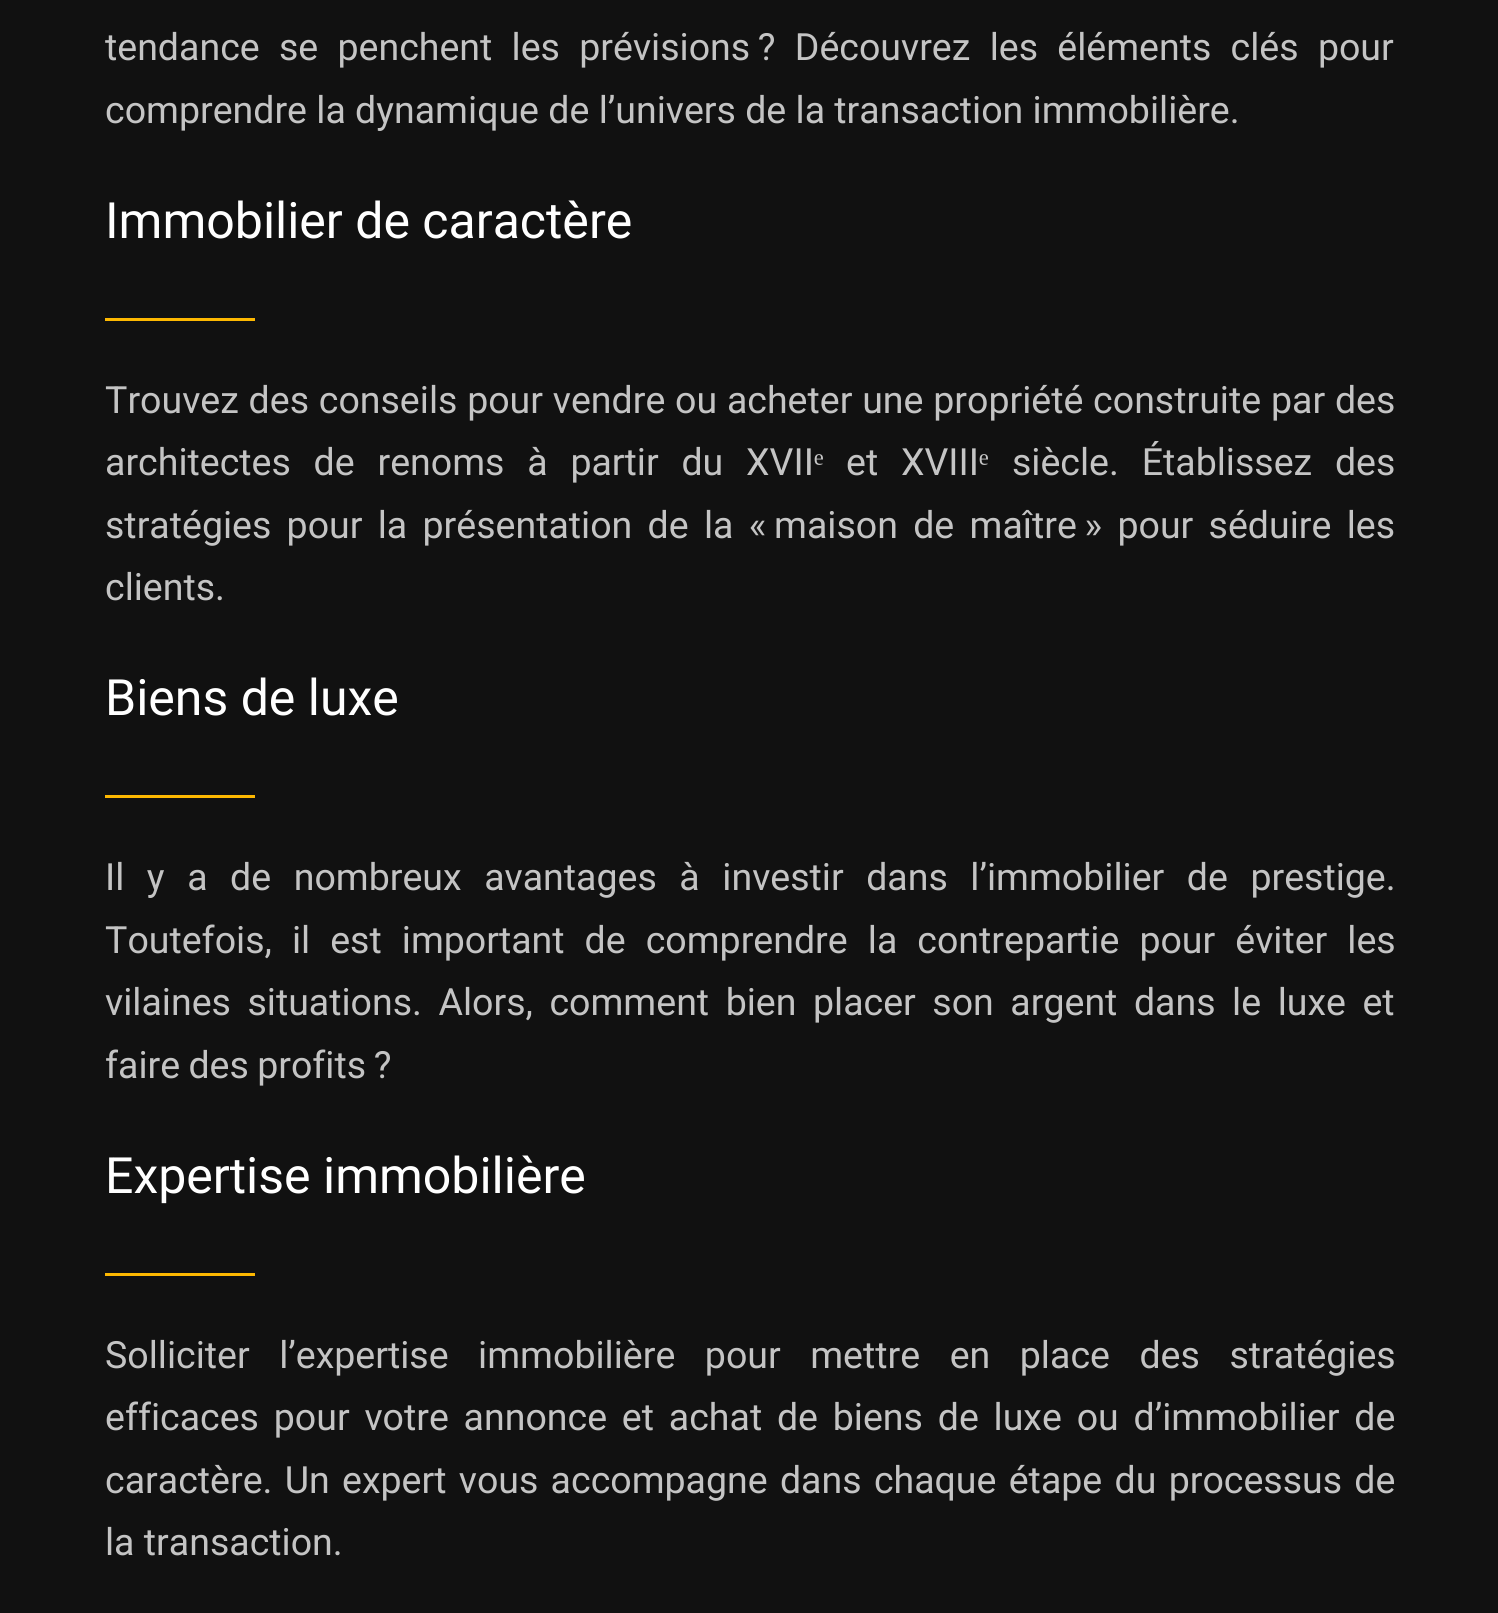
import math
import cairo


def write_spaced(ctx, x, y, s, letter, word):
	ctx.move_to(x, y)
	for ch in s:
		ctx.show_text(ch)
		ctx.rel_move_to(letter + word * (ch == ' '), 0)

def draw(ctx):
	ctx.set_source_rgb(0.067, 0.067, 0.067)
	ctx.paint()
	ctx.select_font_face('Roboto')
	ctx.set_font_size(37.5)
	ctx.set_source_rgb(0.769, 0.769, 0.769)
	write_spaced(ctx, 105, 60, 'tendance se penchent les prévisions ? Découvrez les éléments clés pour', 0, 10)
	ctx.move_to(105, 123)
	ctx.show_text('comprendre la dynamique de l’univers de la transaction immobilière.')
	ctx.set_font_size(50)
	ctx.set_source_rgb(1, 1, 1)
	ctx.move_to(105, 238)
	ctx.show_text('Immobilier de caractère')
	ctx.set_source_rgb(0.992, 0.722, 0.004)
	ctx.rectangle(105, 318, 150, 3)
	ctx.fill()
	ctx.set_font_size(37.5)
	ctx.set_source_rgb(0.769, 0.769, 0.769)
	write_spaced(ctx, 105, 413, 'Trouvez des conseils pour vendre ou acheter une propriété construite par des', 0, 0.5)
	write_spaced(ctx, 105, 475, 'architectes de renoms à partir du XVII', 0, 13.5)
	ctx.select_font_face('Liberation Serif')
	ctx.move_to(814, 475)
	ctx.show_text('ᵉ')
	ctx.select_font_face('Roboto')
	write_spaced(ctx, 846, 475, 'et XVIII', 0, 13.5)
	ctx.select_font_face('Liberation Serif')
	ctx.move_to(979, 475)
	ctx.show_text('ᵉ')
	ctx.select_font_face('Roboto')
	write_spaced(ctx, 1012, 475, 'siècle. Établissez des', 0, 13.5)
	write_spaced(ctx, 105, 538, 'stratégies pour la présentation de la « maison de maître » pour séduire les', 0, 6)
	ctx.move_to(105, 600)
	ctx.show_text('clients.')
	ctx.set_font_size(50)
	ctx.set_source_rgb(1, 1, 1)
	ctx.move_to(105, 715)
	ctx.show_text('Biens de luxe')
	ctx.set_source_rgb(0.992, 0.722, 0.004)
	ctx.rectangle(105, 795, 150, 3)
	ctx.fill()
	ctx.set_font_size(37.5)
	ctx.set_source_rgb(0.769, 0.769, 0.769)
	write_spaced(ctx, 105, 890, 'Il y a de nombreux avantages à investir dans l’immobilier de prestige.', 0, 13.25)
	write_spaced(ctx, 105, 953, 'Toutefois, il est important de comprendre la contrepartie pour éviter les', 0, 10.75)
	write_spaced(ctx, 105, 1015, 'vilaines situations. Alors, comment bien placer son argent dans le luxe et', 0, 7.25)
	write_spaced(ctx, 105, 1078, 'faire des profits ?', 0, -1)
	ctx.set_font_size(50)
	ctx.set_source_rgb(1, 1, 1)
	ctx.move_to(105, 1193)
	ctx.show_text('Expertise immobilière')
	ctx.set_source_rgb(0.992, 0.722, 0.004)
	ctx.rectangle(105, 1273, 150, 3)
	ctx.fill()
	ctx.set_font_size(37.5)
	ctx.set_source_rgb(0.769, 0.769, 0.769)
	write_spaced(ctx, 105, 1368, 'Solliciter l’expertise immobilière pour mettre en place des stratégies', 0, 20.25)
	write_spaced(ctx, 105, 1430, 'efficaces pour votre annonce et achat de biens de luxe ou d’immobilier de', 0, 5.5)
	write_spaced(ctx, 105, 1493, 'caractère. Un expert vous accompagne dans chaque étape du processus de', 0, 3)
	ctx.move_to(105, 1555)
	ctx.show_text('la transaction.')


surface = cairo.ImageSurface(cairo.FORMAT_RGB24, 1498, 1613)
ctx = cairo.Context(surface)
options = cairo.FontOptions()
options.set_hint_metrics(cairo.HINT_METRICS_OFF)
options.set_hint_style(cairo.HINT_STYLE_NONE)
ctx.set_font_options(options)
ctx.set_miter_limit(4)
draw(ctx)
surface.write_to_png('image.png')
